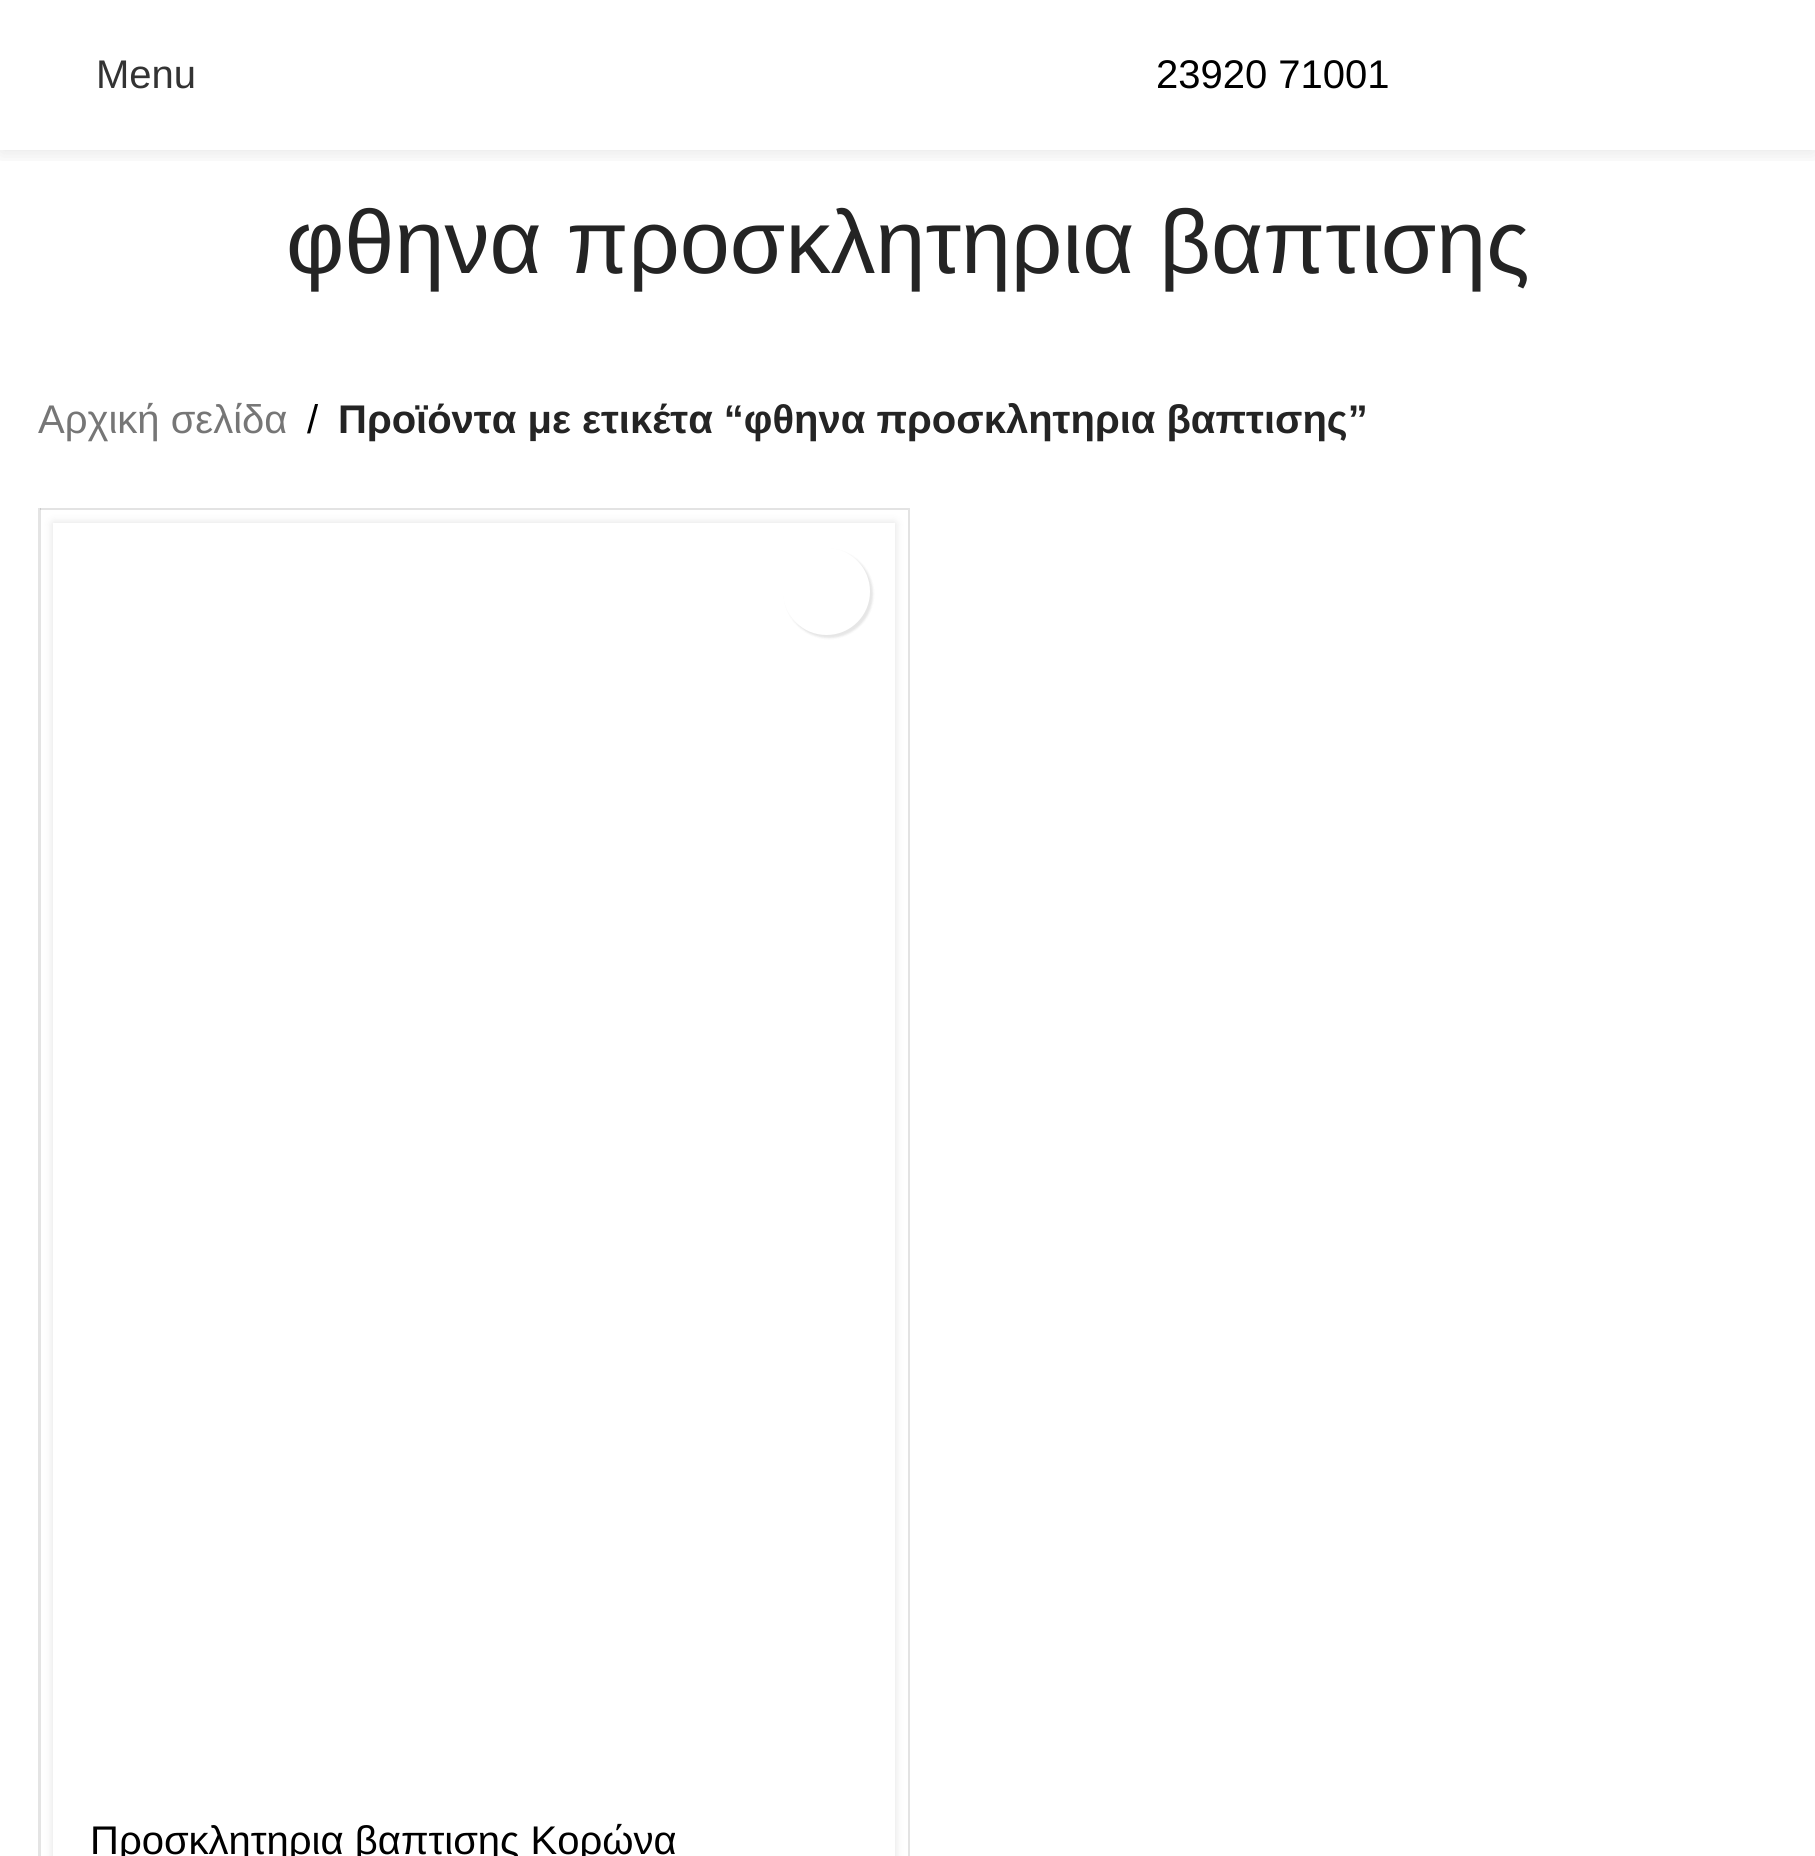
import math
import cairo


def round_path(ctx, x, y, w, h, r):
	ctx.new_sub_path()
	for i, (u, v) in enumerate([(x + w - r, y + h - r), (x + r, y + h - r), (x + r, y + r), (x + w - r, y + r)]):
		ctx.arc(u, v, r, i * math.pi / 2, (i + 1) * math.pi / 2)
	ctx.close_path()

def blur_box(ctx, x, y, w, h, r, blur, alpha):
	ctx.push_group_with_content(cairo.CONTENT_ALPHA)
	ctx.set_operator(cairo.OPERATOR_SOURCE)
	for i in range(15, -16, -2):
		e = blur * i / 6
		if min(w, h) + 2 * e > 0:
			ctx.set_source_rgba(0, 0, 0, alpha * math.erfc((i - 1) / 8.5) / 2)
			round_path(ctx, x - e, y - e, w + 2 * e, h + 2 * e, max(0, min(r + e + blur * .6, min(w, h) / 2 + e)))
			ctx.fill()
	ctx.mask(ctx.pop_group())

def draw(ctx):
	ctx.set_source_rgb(1, 1, 1)
	ctx.paint()
	ctx.save()
	ctx.rectangle(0, 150, 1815, 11)
	ctx.clip()
	ctx.set_source_rgb(0, 0, 0)
	blur_box(ctx, 0, 3, 1815, 150, 0, 10, 0.1)
	ctx.restore()
	ctx.select_font_face('Liberation Sans')
	ctx.set_font_size(40)
	ctx.set_source_rgb(0.2, 0.2, 0.2)
	ctx.move_to(96, 88)
	ctx.show_text('Menu')
	ctx.set_source_rgb(0, 0, 0)
	ctx.move_to(1156, 88)
	ctx.show_text('23920 71001')
	ctx.set_font_size(90)
	ctx.set_source_rgb(0.141, 0.141, 0.141)
	ctx.move_to(286, 273)
	ctx.show_text('φθηνα προσκλητηρια βαπτισης')
	ctx.set_font_size(40)
	ctx.set_source_rgb(0.463, 0.463, 0.463)
	ctx.move_to(38, 433)
	ctx.show_text('Αρχική σελίδα')
	ctx.set_source_rgb(0, 0, 0)
	ctx.move_to(307, 433)
	ctx.show_text('/')
	ctx.select_font_face('Liberation Sans', cairo.FONT_SLANT_NORMAL, cairo.FONT_WEIGHT_BOLD)
	ctx.set_source_rgb(0.141, 0.141, 0.141)
	ctx.move_to(338, 433)
	ctx.show_text('Προϊόντα με ετικέτα “φθηνα προσκλητηρια βαπτισης”')
	ctx.set_source_rgb(0.894, 0.894, 0.894)
	ctx.rectangle(38, 508, 3, 1348)
	ctx.fill()
	ctx.set_source_rgba(0, 0, 0, 0.11)
	ctx.new_path()
	ctx.move_to(40, 508)
	ctx.line_to(910, 508)
	ctx.line_to(908, 510)
	ctx.line_to(40, 510)
	ctx.close_path()
	ctx.fill()
	ctx.new_path()
	ctx.move_to(910, 508)
	ctx.line_to(910, 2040)
	ctx.line_to(908, 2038)
	ctx.line_to(908, 510)
	ctx.close_path()
	ctx.fill()
	ctx.save()
	ctx.set_fill_rule(cairo.FILL_RULE_EVEN_ODD)
	ctx.new_path()
	ctx.move_to(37, 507)
	ctx.line_to(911, 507)
	ctx.line_to(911, 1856)
	ctx.line_to(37, 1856)
	ctx.close_path()
	ctx.move_to(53, 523)
	ctx.line_to(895, 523)
	ctx.line_to(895, 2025)
	ctx.line_to(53, 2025)
	ctx.close_path()
	ctx.clip()
	ctx.set_source_rgb(0, 0, 0)
	blur_box(ctx, 53, 523, 842, 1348, 0, 5, 0.12)
	ctx.restore()
	ctx.set_source_rgb(0, 0, 0)
	blur_box(ctx, 785, 550, 88, 88, 44, 1, 0.1)
	ctx.set_source_rgb(1, 1, 1)
	ctx.arc(826.5, 591.5, 43.5, 0, 2 * math.pi)
	ctx.fill()
	ctx.select_font_face('Liberation Sans')
	ctx.set_source_rgb(0, 0, 0)
	ctx.move_to(90, 1854)
	ctx.show_text('Προσκλητηρια βαπτισης Κορώνα')


surface = cairo.ImageSurface(cairo.FORMAT_RGB24, 1815, 1856)
ctx = cairo.Context(surface)
options = cairo.FontOptions()
options.set_hint_metrics(cairo.HINT_METRICS_OFF)
options.set_hint_style(cairo.HINT_STYLE_NONE)
ctx.set_font_options(options)
ctx.set_miter_limit(4)
draw(ctx)
surface.write_to_png('image.png')
